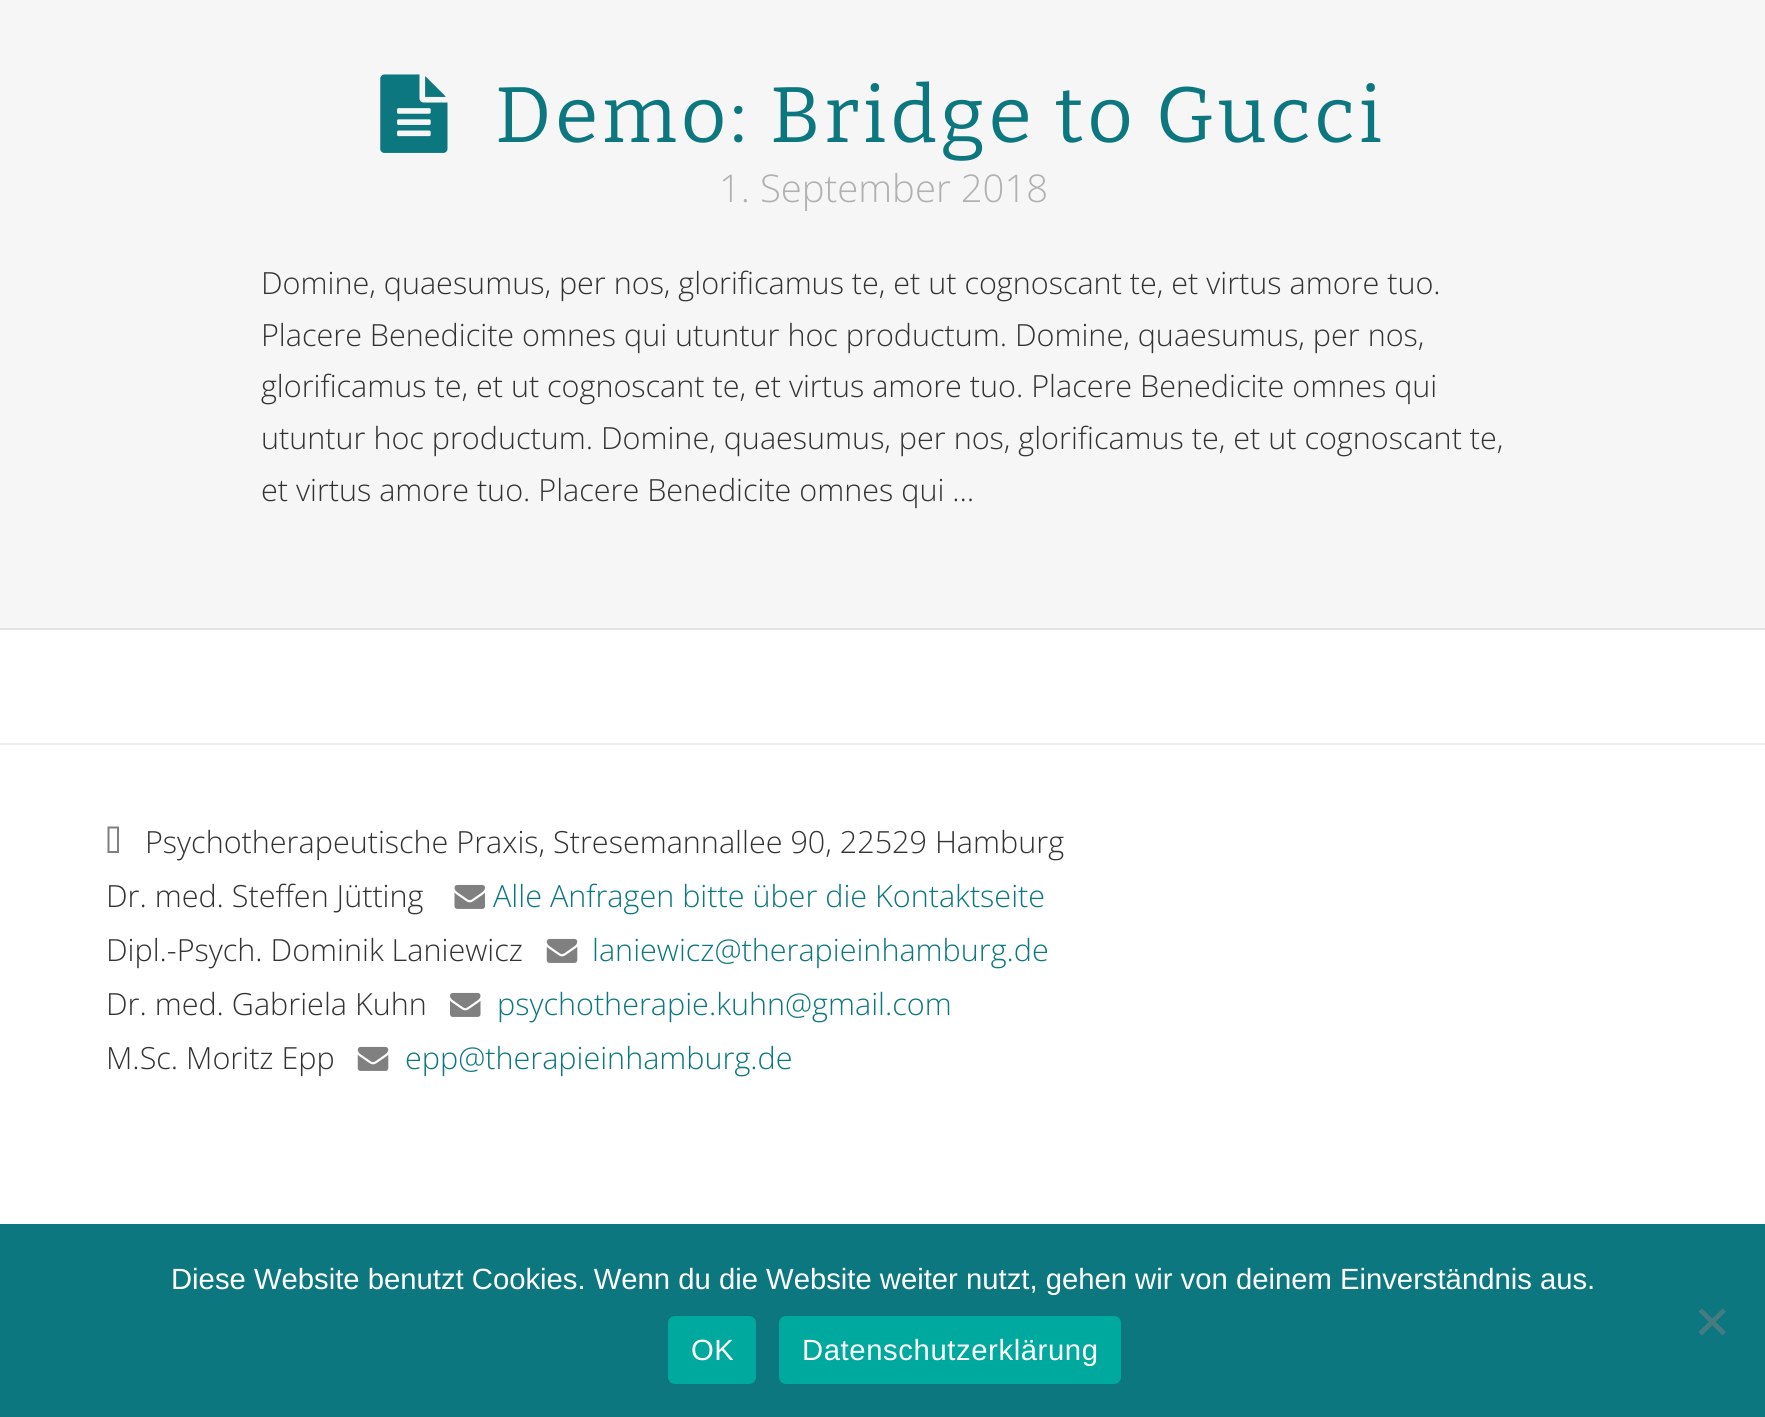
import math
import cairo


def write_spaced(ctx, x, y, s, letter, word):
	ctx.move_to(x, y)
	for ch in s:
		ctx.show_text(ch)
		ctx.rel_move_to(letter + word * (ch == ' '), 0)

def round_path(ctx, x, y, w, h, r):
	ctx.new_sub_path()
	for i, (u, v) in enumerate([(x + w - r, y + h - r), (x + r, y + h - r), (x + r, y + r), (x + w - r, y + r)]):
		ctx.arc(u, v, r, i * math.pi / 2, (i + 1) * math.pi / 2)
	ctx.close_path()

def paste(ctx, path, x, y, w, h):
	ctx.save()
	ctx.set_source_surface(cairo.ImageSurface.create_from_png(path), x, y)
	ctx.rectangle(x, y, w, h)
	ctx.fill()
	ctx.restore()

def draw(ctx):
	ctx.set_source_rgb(1, 1, 1)
	ctx.paint()
	ctx.set_source_rgb(0.961, 0.961, 0.961)
	ctx.rectangle(0, 0, 1765, 628)
	ctx.fill()
	ctx.set_source_rgb(0.89, 0.89, 0.89)
	ctx.rectangle(0, 628, 1765, 2)
	ctx.fill()
	paste(ctx, 'media/1.png', 380, 74, 68, 79)
	ctx.select_font_face('Bitter')
	ctx.set_font_size(78.5)
	ctx.set_source_rgb(0.047, 0.467, 0.498)
	write_spaced(ctx, 495, 142, 'Demo: Bridge to Gucci', 3.9, 0)
	ctx.select_font_face('Open Sans Light')
	ctx.set_font_size(38.25)
	ctx.set_source_rgb(0.694, 0.694, 0.694)
	ctx.move_to(719, 202)
	ctx.show_text('1. September 2018')
	ctx.set_font_size(30.55)
	ctx.set_source_rgb(0.2, 0.2, 0.2)
	for x, y, s in [
		(261, 294, 'Domine, quaesumus, per nos, glorificamus te, et ut cognoscant te, et virtus amore tuo.'),
		(261, 346, 'Placere Benedicite omnes qui utuntur hoc productum. Domine, quaesumus, per nos,'),
		(261, 397, 'glorificamus te, et ut cognoscant te, et virtus amore tuo. Placere Benedicite omnes qui'),
		(261, 449, 'utuntur hoc productum. Domine, quaesumus, per nos, glorificamus te, et ut cognoscant te,'),
		(261, 501, 'et virtus amore tuo. Placere Benedicite omnes qui …'),
	]:
		ctx.move_to(x, y)
		ctx.show_text(s)
	ctx.set_source_rgb(0.925, 0.925, 0.925)
	ctx.rectangle(0, 743, 1765, 2)
	ctx.fill()
	ctx.set_source_rgb(0.502, 0.502, 0.502)
	ctx.new_path()
	ctx.move_to(109.5, 851)
	ctx.line_to(109.5, 828.5)
	ctx.line_to(117, 828.5)
	ctx.line_to(117, 851)
	ctx.close_path()
	ctx.move_to(107.5, 853)
	ctx.line_to(119, 853)
	ctx.line_to(119, 826.5)
	ctx.line_to(107.5, 826.5)
	ctx.close_path()
	ctx.fill()
	ctx.set_source_rgb(0.2, 0.2, 0.2)
	ctx.move_to(145, 853)
	ctx.show_text('Psychotherapeutische Praxis, Stresemannallee 90, 22529 Hamburg')
	ctx.move_to(106, 907)
	ctx.show_text('Dr. med. Steffen Jütting')
	paste(ctx, 'media/2.png', 454, 884, 31, 25)
	ctx.set_source_rgb(0.047, 0.467, 0.498)
	ctx.move_to(493, 907)
	ctx.show_text('Alle Anfragen bitte über die Kontaktseite')
	ctx.set_source_rgb(0.2, 0.2, 0.2)
	ctx.move_to(106, 961)
	ctx.show_text('Dipl.-Psych. Dominik Laniewicz')
	paste(ctx, 'media/3.png', 546, 938, 32, 25)
	ctx.set_source_rgb(0.047, 0.467, 0.498)
	ctx.move_to(592, 961)
	ctx.show_text('laniewicz@therapieinhamburg.de')
	ctx.set_source_rgb(0.2, 0.2, 0.2)
	ctx.move_to(106, 1015)
	ctx.show_text('Dr. med. Gabriela Kuhn')
	paste(ctx, 'media/4.png', 450, 992, 31, 25)
	ctx.set_source_rgb(0.047, 0.467, 0.498)
	ctx.move_to(497, 1015)
	ctx.show_text('psychotherapie.kuhn@gmail.com')
	ctx.set_source_rgb(0.2, 0.2, 0.2)
	ctx.move_to(106, 1069)
	ctx.show_text('M.Sc. Moritz Epp')
	paste(ctx, 'media/3.png', 357, 1046, 32, 25)
	ctx.set_source_rgb(0.047, 0.467, 0.498)
	ctx.move_to(405, 1069)
	ctx.show_text('epp@therapieinhamburg.de')
	ctx.rectangle(0, 1224, 1765, 193)
	ctx.fill()
	ctx.select_font_face('Liberation Sans')
	ctx.set_font_size(29.25)
	ctx.set_source_rgb(1, 1, 1)
	ctx.move_to(171, 1289)
	ctx.show_text('Diese Website benutzt Cookies. Wenn du die Website weiter nutzt, gehen wir von deinem Einverständnis aus.')
	ctx.set_source_rgb(0.275, 0.486, 0.502)
	ctx.new_path()
	ctx.move_to(1722.5, 1308.5)
	ctx.line_to(1726, 1311.5)
	ctx.line_to(1702, 1335.5)
	ctx.line_to(1698.5, 1332)
	ctx.close_path()
	ctx.fill()
	ctx.new_path()
	ctx.move_to(1698.5, 1311.5)
	ctx.line_to(1702, 1308.5)
	ctx.line_to(1726, 1332)
	ctx.line_to(1722.5, 1335.5)
	ctx.close_path()
	ctx.fill()
	ctx.set_source_rgb(0, 0.663, 0.616)
	round_path(ctx, 668, 1316, 88, 68, 7)
	ctx.fill()
	ctx.set_source_rgb(1, 1, 1)
	write_spaced(ctx, 691, 1360, 'OK', 0.6, 0)
	ctx.set_source_rgb(0, 0.663, 0.616)
	round_path(ctx, 779, 1316, 342, 68, 7)
	ctx.fill()
	ctx.set_source_rgb(1, 1, 1)
	write_spaced(ctx, 802, 1360, 'Datenschutzerklärung', 0.6, 0)


surface = cairo.ImageSurface(cairo.FORMAT_RGB24, 1765, 1417)
ctx = cairo.Context(surface)
options = cairo.FontOptions()
options.set_hint_metrics(cairo.HINT_METRICS_OFF)
options.set_hint_style(cairo.HINT_STYLE_NONE)
ctx.set_font_options(options)
ctx.set_miter_limit(4)
draw(ctx)
surface.write_to_png('image.png')
